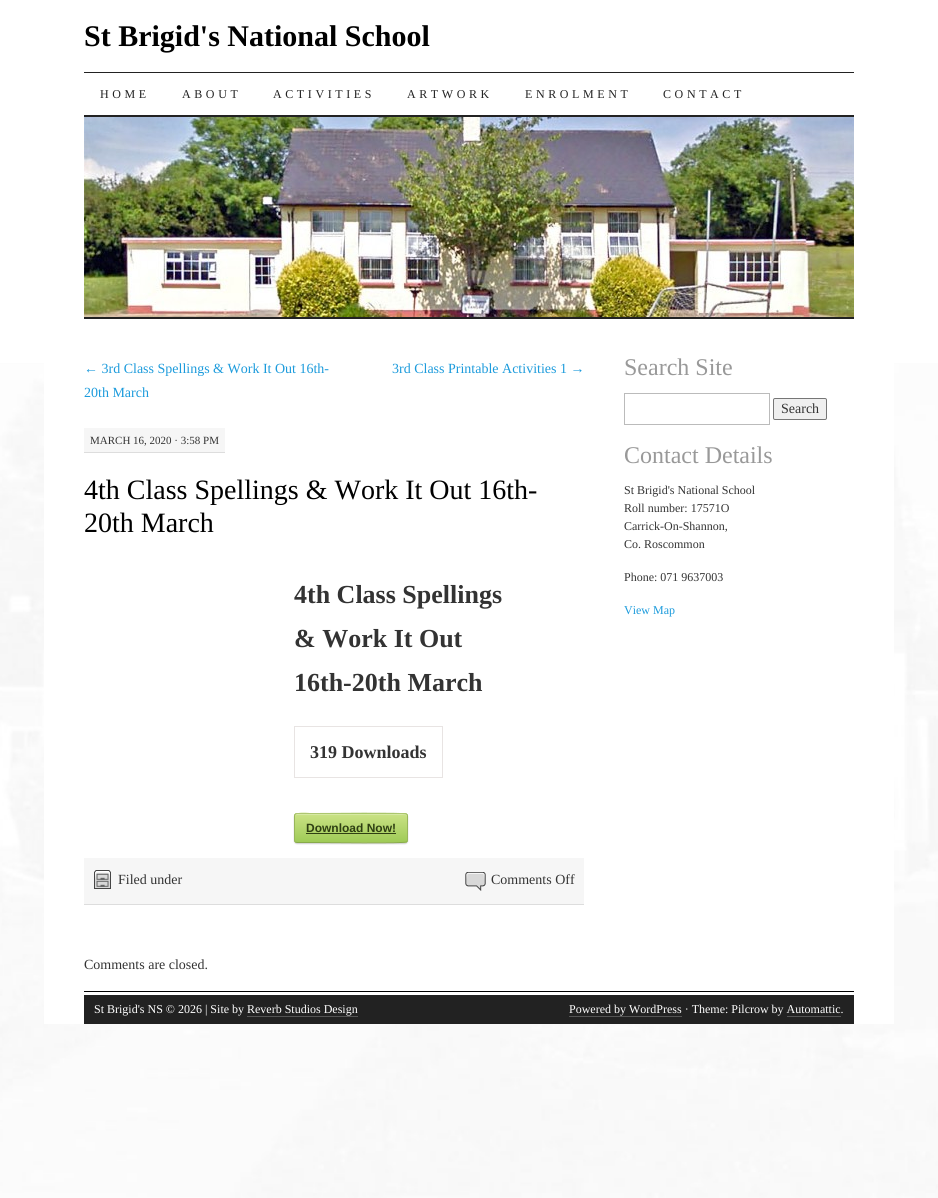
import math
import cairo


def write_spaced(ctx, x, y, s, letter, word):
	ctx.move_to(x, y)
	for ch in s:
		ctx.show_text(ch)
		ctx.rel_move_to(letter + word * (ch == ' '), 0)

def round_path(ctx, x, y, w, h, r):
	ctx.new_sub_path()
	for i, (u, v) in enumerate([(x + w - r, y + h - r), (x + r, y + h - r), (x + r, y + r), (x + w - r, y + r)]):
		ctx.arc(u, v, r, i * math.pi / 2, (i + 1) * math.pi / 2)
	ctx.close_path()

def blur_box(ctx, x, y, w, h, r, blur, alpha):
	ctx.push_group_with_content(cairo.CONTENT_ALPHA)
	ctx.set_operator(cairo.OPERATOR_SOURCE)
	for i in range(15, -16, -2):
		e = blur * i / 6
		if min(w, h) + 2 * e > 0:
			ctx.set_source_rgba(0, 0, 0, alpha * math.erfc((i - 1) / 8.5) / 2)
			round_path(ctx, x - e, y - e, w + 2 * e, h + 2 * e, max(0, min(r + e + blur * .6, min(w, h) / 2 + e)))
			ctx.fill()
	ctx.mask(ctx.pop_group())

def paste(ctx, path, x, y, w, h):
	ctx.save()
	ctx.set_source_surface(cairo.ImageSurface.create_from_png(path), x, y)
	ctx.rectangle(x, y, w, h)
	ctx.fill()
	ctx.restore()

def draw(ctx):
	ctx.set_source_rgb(1, 1, 1)
	ctx.paint()
	paste(ctx, 'media/1.png', 0, 363, 938, 835)
	ctx.set_source_rgb(1, 1, 1)
	ctx.rectangle(44, 363, 850, 661)
	ctx.fill()
	ctx.select_font_face('Liberation Serif', cairo.FONT_SLANT_NORMAL, cairo.FONT_WEIGHT_BOLD)
	ctx.set_font_size(30)
	ctx.set_source_rgb(0, 0, 0)
	ctx.move_to(84, 46)
	ctx.show_text('St Brigid\'s National School')
	ctx.set_source_rgb(0.133, 0.133, 0.133)
	ctx.rectangle(84, 72, 770, 1)
	ctx.fill()
	ctx.rectangle(84, 115, 770, 2)
	ctx.fill()
	ctx.select_font_face('Liberation Serif')
	ctx.set_font_size(12)
	for x, y, s in [
		(100, 98, 'HOME'),
		(182, 98, 'ABOUT'),
		(273, 98, 'ACTIVITIES'),
		(407, 98, 'ARTWORK'),
		(525, 98, 'ENROLMENT'),
		(663, 98, 'CONTACT'),
	]:
		write_spaced(ctx, x, y, s, 3.6, 0)
	paste(ctx, 'media/2.png', 84, 117, 770, 200)
	ctx.rectangle(84, 317, 770, 2)
	ctx.fill()
	ctx.set_font_size(14)
	ctx.set_source_rgb(0.11, 0.608, 0.863)
	for x, y, s in [
		(84, 373, '← 3rd Class Spellings & Work It Out 16th-'),
		(84, 397, '20th March'),
		(392, 373, '3rd Class Printable Activities 1 →'),
	]:
		ctx.move_to(x, y)
		ctx.show_text(s)
	ctx.set_source_rgb(0.961, 0.961, 0.961)
	ctx.rectangle(84, 428, 141, 24)
	ctx.fill()
	ctx.set_source_rgb(0.867, 0.867, 0.867)
	ctx.rectangle(84, 452, 141, 1)
	ctx.fill()
	ctx.set_font_size(11)
	ctx.set_source_rgb(0.2, 0.2, 0.2)
	ctx.move_to(90, 444)
	ctx.show_text('MARCH 16, 2020 · 3:58 PM')
	ctx.set_font_size(28)
	ctx.set_source_rgb(0, 0, 0)
	ctx.move_to(84, 499)
	ctx.show_text('4th Class Spellings & Work It Out 16th-')
	ctx.move_to(84, 532)
	ctx.show_text('20th March')
	ctx.select_font_face('Liberation Serif', cairo.FONT_SLANT_NORMAL, cairo.FONT_WEIGHT_BOLD)
	ctx.set_font_size(26)
	ctx.set_source_rgb(0.2, 0.2, 0.2)
	for x, y, s in [
		(294, 603, '4th Class Spellings'),
		(294, 647, '& Work It Out'),
		(294, 691, '16th-20th March'),
	]:
		ctx.move_to(x, y)
		ctx.show_text(s)
	ctx.rectangle(294.5, 726.5, 148, 51)
	ctx.set_source_rgb(0.91, 0.894, 0.89)
	ctx.set_line_width(1)
	ctx.stroke()
	ctx.set_font_size(18)
	ctx.set_source_rgb(0.2, 0.2, 0.2)
	ctx.move_to(310, 758)
	ctx.show_text('319 Downloads')
	ctx.set_source_rgb(0.827, 0.827, 0.827)
	blur_box(ctx, 294, 814, 114, 30, 3, 0.5, 1)
	ctx.save()
	round_path(ctx, 294, 813, 114, 30, 3)
	ctx.clip()
	gradient = cairo.LinearGradient(295, 786, 295, 814)
	gradient.add_color_stop_rgba(0, 0.792, 0.886, 0.522, 1)
	gradient.add_color_stop_rgba(1, 0.624, 0.796, 0.341, 1)
	ctx.set_source(gradient)
	ctx.rectangle(294, 813, 114, 1)
	ctx.fill()
	gradient = cairo.LinearGradient(295, 814, 295, 842)
	gradient.add_color_stop_rgba(0, 0.792, 0.886, 0.522, 1)
	gradient.add_color_stop_rgba(1, 0.624, 0.796, 0.341, 1)
	ctx.set_source(gradient)
	ctx.rectangle(294, 814, 114, 28)
	ctx.fill()
	gradient = cairo.LinearGradient(295, 842, 295, 870)
	gradient.add_color_stop_rgba(0, 0.792, 0.886, 0.522, 1)
	gradient.add_color_stop_rgba(1, 0.624, 0.796, 0.341, 1)
	ctx.set_source(gradient)
	ctx.rectangle(294, 842, 114, 1)
	ctx.fill()
	ctx.restore()
	ctx.set_source_rgb(0.843, 0.914, 0.643)
	ctx.new_path()
	ctx.move_to(297, 815)
	ctx.line_to(405, 815)
	ctx.curve_to(406, 815, 407, 816, 407, 817)
	ctx.curve_to(407, 816, 407, 814, 405, 814)
	ctx.line_to(315, 814)
	ctx.curve_to(315, 814, 295, 809, 295, 817)
	ctx.curve_to(295, 816, 296, 815, 297, 815)
	ctx.close_path()
	ctx.fill()
	ctx.new_path()
	ctx.move_to(295, 814)
	ctx.line_to(297, 813.5)
	ctx.line_to(315, 813.5)
	ctx.curve_to(324, 813.5, 404.5, 812.5, 406.5, 814)
	ctx.line_to(407, 814)
	ctx.set_source_rgb(0.678, 0.776, 0.443)
	ctx.stroke()
	ctx.new_path()
	ctx.move_to(407, 814)
	ctx.curve_to(407, 814.5, 407.5, 815.5, 407.5, 816)
	ctx.line_to(407.5, 840)
	ctx.curve_to(407.5, 840.5, 407, 841.5, 407, 842)
	ctx.set_source_rgb(0.596, 0.714, 0.357)
	ctx.stroke()
	ctx.new_path()
	ctx.move_to(407, 842)
	ctx.line_to(406.5, 842)
	ctx.curve_to(404.5, 843.5, 324, 842.5, 315, 842.5)
	ctx.line_to(297, 842.5)
	ctx.line_to(295, 842)
	ctx.set_source_rgb(0.529, 0.667, 0.29)
	ctx.stroke()
	ctx.new_path()
	ctx.move_to(295, 842)
	ctx.curve_to(295, 841.5, 294.5, 840.5, 294.5, 840)
	ctx.line_to(294.5, 816)
	ctx.curve_to(294.5, 815.5, 295, 814.5, 295, 814)
	ctx.set_source_rgb(0.596, 0.714, 0.357)
	ctx.stroke()
	ctx.select_font_face('Liberation Sans', cairo.FONT_SLANT_NORMAL, cairo.FONT_WEIGHT_BOLD)
	ctx.set_font_size(12)
	ctx.set_source_rgb(0.184, 0.251, 0.078)
	ctx.move_to(306, 832)
	ctx.show_text('Download Now!')
	ctx.rectangle(306, 833, 90, 1)
	ctx.fill()
	ctx.set_source_rgb(0.961, 0.961, 0.961)
	ctx.rectangle(84, 858, 500, 46)
	ctx.fill()
	ctx.set_source_rgb(0.867, 0.867, 0.867)
	ctx.rectangle(84, 904, 500, 1)
	ctx.fill()
	paste(ctx, 'media/3.png', 94, 870, 17, 19)
	ctx.select_font_face('Liberation Serif')
	ctx.set_font_size(14)
	ctx.set_source_rgb(0.2, 0.2, 0.2)
	ctx.move_to(118, 884)
	ctx.show_text('Filed under')
	paste(ctx, 'media/4.png', 465, 872, 21, 19)
	ctx.move_to(491, 884)
	ctx.show_text('Comments Off')
	ctx.move_to(84, 969)
	ctx.show_text('Comments are closed.')
	ctx.set_font_size(24)
	ctx.set_source_rgb(0.6, 0.6, 0.6)
	ctx.move_to(624, 375)
	ctx.show_text('Search Site')
	ctx.rectangle(624.5, 393.5, 145, 31)
	ctx.set_source_rgb(0.733, 0.733, 0.733)
	ctx.stroke()
	ctx.set_source_rgb(0.937, 0.937, 0.937)
	round_path(ctx, 773.5, 398.5, 53, 21, 1.5)
	ctx.fill_preserve()
	ctx.set_source_rgb(0.463, 0.463, 0.463)
	ctx.stroke()
	ctx.set_font_size(14)
	ctx.set_source_rgb(0.2, 0.2, 0.2)
	ctx.move_to(781, 413)
	ctx.show_text('Search')
	ctx.set_font_size(24)
	ctx.set_source_rgb(0.6, 0.6, 0.6)
	ctx.move_to(624, 463)
	ctx.show_text('Contact Details')
	ctx.set_font_size(12)
	ctx.set_source_rgb(0.2, 0.2, 0.2)
	for x, y, s in [
		(624, 494, 'St Brigid\'s National School'),
		(624, 512, 'Roll number: 17571O'),
		(624, 530, 'Carrick-On-Shannon,'),
		(624, 548, 'Co. Roscommon'),
		(624, 581, 'Phone: 071 9637003'),
	]:
		ctx.move_to(x, y)
		ctx.show_text(s)
	ctx.set_source_rgb(0.11, 0.608, 0.863)
	ctx.move_to(624, 614)
	ctx.show_text('View Map')
	ctx.set_source_rgb(0, 0, 0)
	ctx.rectangle(84, 991, 770, 1)
	ctx.fill()
	ctx.set_source_rgb(0.133, 0.133, 0.133)
	ctx.rectangle(84, 995, 770, 29)
	ctx.fill()
	ctx.set_source_rgb(1, 1, 1)
	ctx.move_to(94, 1013)
	ctx.show_text('St Brigid\'s NS © 2026 | Site by Reverb Studios Design')
	ctx.set_source_rgb(0.333, 0.333, 0.333)
	ctx.rectangle(247, 1016, 111, 1)
	ctx.fill()
	ctx.set_source_rgb(1, 1, 1)
	ctx.move_to(569, 1013)
	ctx.show_text('Powered by WordPress · Theme: Pilcrow by Automattic.')
	ctx.set_source_rgb(0.333, 0.333, 0.333)
	ctx.rectangle(569, 1016, 113, 1)
	ctx.fill()
	ctx.rectangle(787, 1016, 54, 1)
	ctx.fill()


surface = cairo.ImageSurface(cairo.FORMAT_RGB24, 938, 1198)
ctx = cairo.Context(surface)
options = cairo.FontOptions()
options.set_hint_metrics(cairo.HINT_METRICS_OFF)
options.set_hint_style(cairo.HINT_STYLE_NONE)
ctx.set_font_options(options)
ctx.set_miter_limit(4)
draw(ctx)
surface.write_to_png('image.png')
